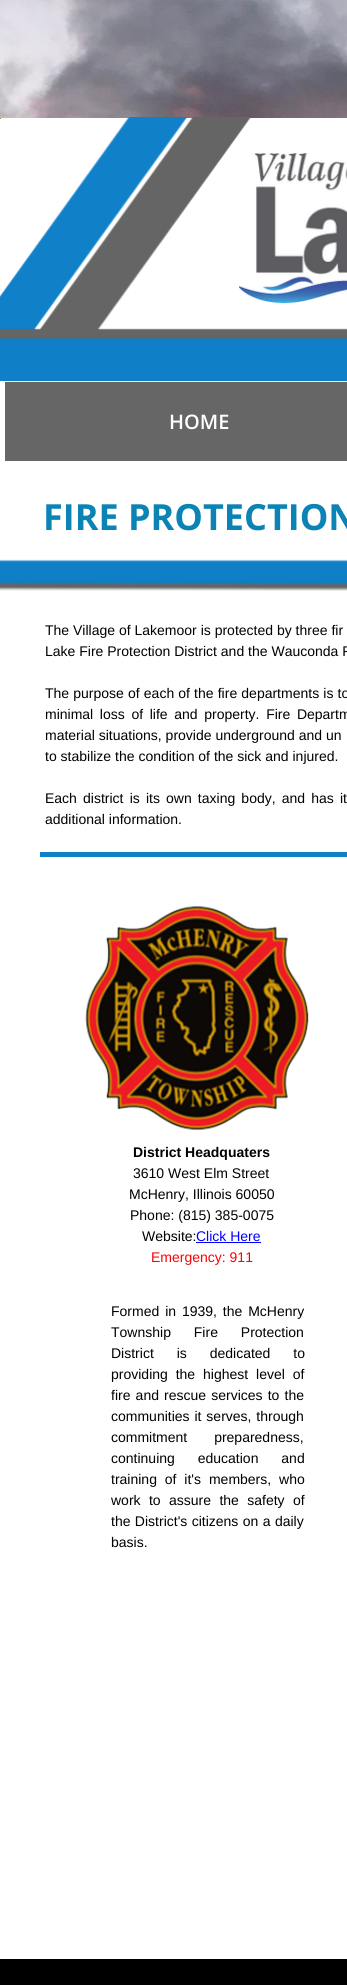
import math
import cairo


def write_spaced(ctx, x, y, s, letter, word):
	ctx.move_to(x, y)
	for ch in s:
		ctx.show_text(ch)
		ctx.rel_move_to(letter + word * (ch == ' '), 0)

def paste(ctx, path, x, y, w, h):
	ctx.save()
	ctx.set_source_surface(cairo.ImageSurface.create_from_png(path), x, y)
	ctx.rectangle(x, y, w, h)
	ctx.fill()
	ctx.restore()

def draw(ctx):
	ctx.set_source_rgb(1, 1, 1)
	ctx.paint()
	paste(ctx, 'media/1.png', 0, 0, 347, 118)
	paste(ctx, 'media/2.png', 0, 117, 347, 264)
	ctx.set_source_rgb(0.639, 0.506, 0.329)
	ctx.rectangle(0, 118, 1, 1)
	ctx.fill()
	paste(ctx, 'media/3.png', 239, 153, 108, 151)
	ctx.set_source_rgb(0.984, 0.949, 0.816)
	ctx.rectangle(5, 381, 342, 1)
	ctx.fill()
	ctx.set_source_rgb(0.4, 0.4, 0.4)
	ctx.rectangle(5, 382, 342, 79)
	ctx.fill()
	ctx.select_font_face('Open Sans SemiBold')
	ctx.set_font_size(20)
	ctx.set_source_rgb(1, 1, 1)
	ctx.move_to(169, 429)
	ctx.show_text('HOME')
	ctx.select_font_face('Open Sans', cairo.FONT_SLANT_NORMAL, cairo.FONT_WEIGHT_BOLD)
	ctx.set_font_size(36)
	ctx.set_source_rgb(0.043, 0.518, 0.71)
	ctx.move_to(43, 530)
	ctx.show_text('FIRE PROTECTION')
	paste(ctx, 'media/4.png', 0, 559, 347, 32)
	ctx.select_font_face('Liberation Sans')
	ctx.set_font_size(14)
	ctx.set_source_rgb(0, 0, 0)
	ctx.move_to(45, 635)
	ctx.show_text('The Village of Lakemoor is protected by three fir')
	ctx.move_to(45, 656)
	ctx.show_text('Lake Fire Protection District and the Wauconda F')
	write_spaced(ctx, 45, 698, 'The purpose of each of the fire departments is to', 0, 0.25)
	write_spaced(ctx, 45, 719, 'minimal loss of life and property. Fire Departm', 0, 2.75)
	ctx.move_to(45, 740)
	ctx.show_text('material situations, provide underground and un')
	ctx.move_to(45, 761)
	ctx.show_text('to stabilize the condition of the sick and injured.')
	write_spaced(ctx, 45, 803, 'Each district is its own taxing body, and has it', 0, 2.25)
	ctx.move_to(45, 824)
	ctx.show_text('additional information.')
	ctx.set_source_rgb(0.063, 0.502, 0.784)
	ctx.rectangle(40, 852, 307, 5)
	ctx.fill()
	paste(ctx, 'media/5.png', 85, 905, 224, 226)
	ctx.select_font_face('Liberation Sans', cairo.FONT_SLANT_NORMAL, cairo.FONT_WEIGHT_BOLD)
	ctx.set_source_rgb(0, 0, 0)
	ctx.move_to(133, 1157)
	ctx.show_text('District Headquaters')
	ctx.select_font_face('Liberation Sans')
	for x, y, s in [
		(133, 1178, '3610 West Elm Street'),
		(129, 1199, 'McHenry, Illinois 60050'),
		(130, 1220, 'Phone: (815) 385-0075'),
		(142, 1241, 'Website:'),
	]:
		ctx.move_to(x, y)
		ctx.show_text(s)
	ctx.set_source_rgb(0, 0, 1)
	ctx.move_to(196, 1241)
	ctx.show_text('Click Here')
	ctx.rectangle(196, 1242, 65, 1)
	ctx.fill()
	ctx.set_source_rgb(1, 0, 0)
	ctx.move_to(151, 1262)
	ctx.show_text('Emergency: 911')
	ctx.set_source_rgb(0, 0, 0)
	write_spaced(ctx, 111, 1316, 'Formed in 1939, the McHenry', 0, 2)
	write_spaced(ctx, 111, 1337, 'Township Fire Protection', 0, 19)
	write_spaced(ctx, 111, 1358, 'District is dedicated to', 0, 19)
	write_spaced(ctx, 111, 1379, 'providing the highest level of', 0, 4)
	write_spaced(ctx, 111, 1400, 'fire and rescue services to the', 0, 1.25)
	write_spaced(ctx, 111, 1421, 'communities it serves, through', 0, 1)
	write_spaced(ctx, 111, 1442, 'commitment preparedness,', 0, 23)
	write_spaced(ctx, 111, 1463, 'continuing education and', 0, 19)
	write_spaced(ctx, 111, 1484, 'training of it\'s members, who', 0, 4)
	write_spaced(ctx, 111, 1505, 'work to assure the safety of', 0, 4.5)
	write_spaced(ctx, 111, 1526, 'the District\'s citizens on a daily', 0, 0.5)
	ctx.move_to(111, 1547)
	ctx.show_text('basis.')
	ctx.rectangle(0, 1959, 347, 26)
	ctx.fill()


surface = cairo.ImageSurface(cairo.FORMAT_RGB24, 347, 1985)
ctx = cairo.Context(surface)
options = cairo.FontOptions()
options.set_hint_metrics(cairo.HINT_METRICS_OFF)
options.set_hint_style(cairo.HINT_STYLE_NONE)
ctx.set_font_options(options)
ctx.set_miter_limit(4)
draw(ctx)
surface.write_to_png('image.png')
